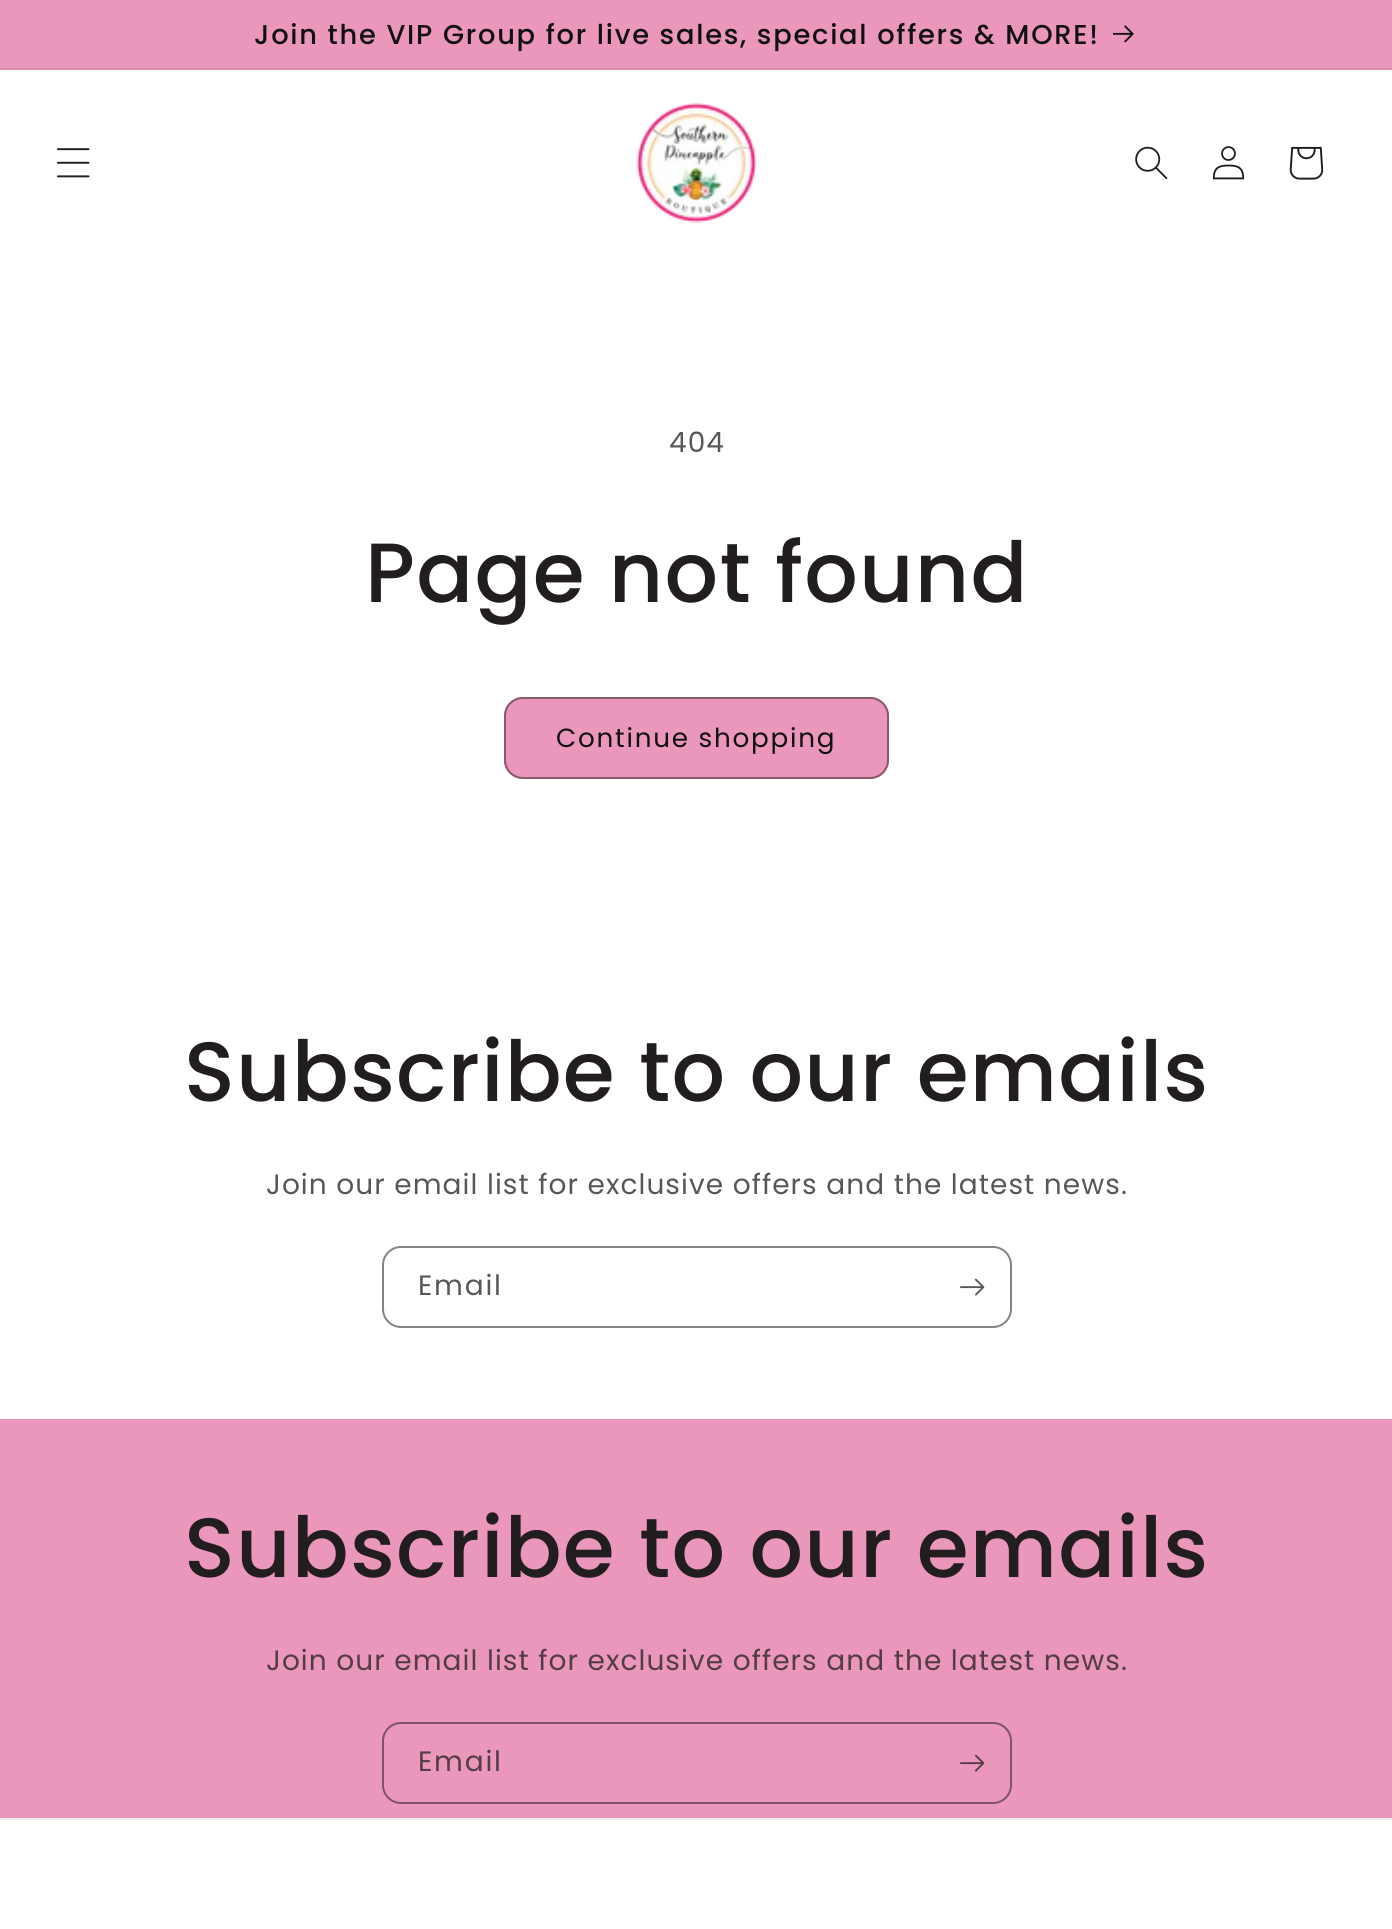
import math
import cairo


def write_spaced(ctx, x, y, s, letter, word):
	ctx.move_to(x, y)
	for ch in s:
		ctx.show_text(ch)
		ctx.rel_move_to(letter + word * (ch == ' '), 0)

def round_path(ctx, x, y, w, h, r):
	ctx.new_sub_path()
	for i, (u, v) in enumerate([(x + w - r, y + h - r), (x + r, y + h - r), (x + r, y + r), (x + w - r, y + r)]):
		ctx.arc(u, v, r, i * math.pi / 2, (i + 1) * math.pi / 2)
	ctx.close_path()

def paste(ctx, path, x, y, w, h):
	ctx.save()
	ctx.set_source_surface(cairo.ImageSurface.create_from_png(path), x, y)
	ctx.rectangle(x, y, w, h)
	ctx.fill()
	ctx.restore()

def draw(ctx):
	ctx.set_source_rgb(1, 1, 1)
	ctx.paint()
	ctx.set_source_rgb(0.918, 0.592, 0.733)
	ctx.rectangle(0, 0, 1392, 68)
	ctx.fill()
	ctx.set_source_rgb(0.851, 0.549, 0.678)
	ctx.rectangle(0, 68, 1392, 2)
	ctx.fill()
	ctx.select_font_face('Poppins Medium')
	ctx.set_font_size(27.3)
	ctx.set_source_rgb(0.063, 0.063, 0.063)
	write_spaced(ctx, 254, 44, 'Join the VIP Group for live sales, special offers & MORE!', 1.75, 0)
	paste(ctx, 'media/1.png', 1113, 25, 21, 18)
	paste(ctx, 'media/2.png', 57, 148, 33, 30)
	paste(ctx, 'media/3.png', 636, 103, 121, 120)
	paste(ctx, 'media/4.png', 1135, 146, 33, 34)
	paste(ctx, 'media/5.png', 1212, 146, 33, 34)
	paste(ctx, 'media/6.png', 1289, 146, 35, 34)
	ctx.select_font_face('Poppins')
	ctx.set_font_size(28)
	ctx.set_source_rgb(0.349, 0.337, 0.341)
	write_spaced(ctx, 669, 452, '404', 1.05, 0)
	ctx.select_font_face('Poppins Medium')
	ctx.set_font_size(84)
	ctx.set_source_rgb(0.133, 0.118, 0.122)
	write_spaced(ctx, 365, 602, 'Page not found', 1.25, 0)
	ctx.set_source_rgb(0.918, 0.592, 0.733)
	round_path(ctx, 504, 697, 385, 82, 19)
	ctx.fill()
	round_path(ctx, 505, 698, 383, 80, 18)
	ctx.stroke()
	round_path(ctx, 505, 698, 383, 80, 18)
	ctx.set_source_rgba(0.063, 0.063, 0.063, 0.45)
	ctx.stroke()
	ctx.select_font_face('Poppins')
	ctx.set_font_size(26.25)
	ctx.set_source_rgb(0.063, 0.063, 0.063)
	write_spaced(ctx, 556, 747, 'Continue shopping', 1.75, 0)
	ctx.select_font_face('Poppins Medium')
	ctx.set_font_size(84)
	ctx.set_source_rgb(0.133, 0.118, 0.122)
	write_spaced(ctx, 184, 1101, 'Subscribe to our emails', 1.25, 0)
	ctx.select_font_face('Poppins')
	ctx.set_font_size(28)
	ctx.set_source_rgb(0.349, 0.337, 0.341)
	write_spaced(ctx, 266, 1194, 'Join our email list for exclusive offers and the latest news.', 1.05, 0)
	round_path(ctx, 383, 1247, 628, 80, 18)
	ctx.set_source_rgb(0.522, 0.514, 0.518)
	ctx.stroke()
	ctx.set_source_rgb(0.349, 0.337, 0.341)
	write_spaced(ctx, 418, 1295, 'Email', 1.75, 0)
	paste(ctx, 'media/7.png', 960, 1278, 25, 18)
	ctx.set_source_rgb(0.918, 0.592, 0.733)
	ctx.rectangle(0, 1419, 1392, 399)
	ctx.fill()
	ctx.select_font_face('Poppins Medium')
	ctx.set_font_size(84)
	ctx.set_source_rgb(0.133, 0.118, 0.122)
	write_spaced(ctx, 184, 1577, 'Subscribe to our emails', 1.25, 0)
	ctx.select_font_face('Poppins')
	ctx.set_font_size(28)
	ctx.set_source_rgb(0.329, 0.235, 0.275)
	write_spaced(ctx, 266, 1670, 'Join our email list for exclusive offers and the latest news.', 1.05, 0)
	round_path(ctx, 383, 1723, 628, 80, 18)
	ctx.set_source_rgb(0.486, 0.329, 0.396)
	ctx.stroke()
	ctx.set_source_rgb(0.329, 0.235, 0.275)
	write_spaced(ctx, 418, 1771, 'Email', 1.75, 0)
	paste(ctx, 'media/8.png', 960, 1754, 25, 18)
	ctx.set_source_rgb(0.929, 0.929, 0.929)
	ctx.rectangle(0, 1818, 1392, 2)
	ctx.fill()


surface = cairo.ImageSurface(cairo.FORMAT_RGB24, 1392, 1929)
ctx = cairo.Context(surface)
options = cairo.FontOptions()
options.set_hint_metrics(cairo.HINT_METRICS_OFF)
options.set_hint_style(cairo.HINT_STYLE_NONE)
ctx.set_font_options(options)
ctx.set_miter_limit(4)
draw(ctx)
surface.write_to_png('image.png')
